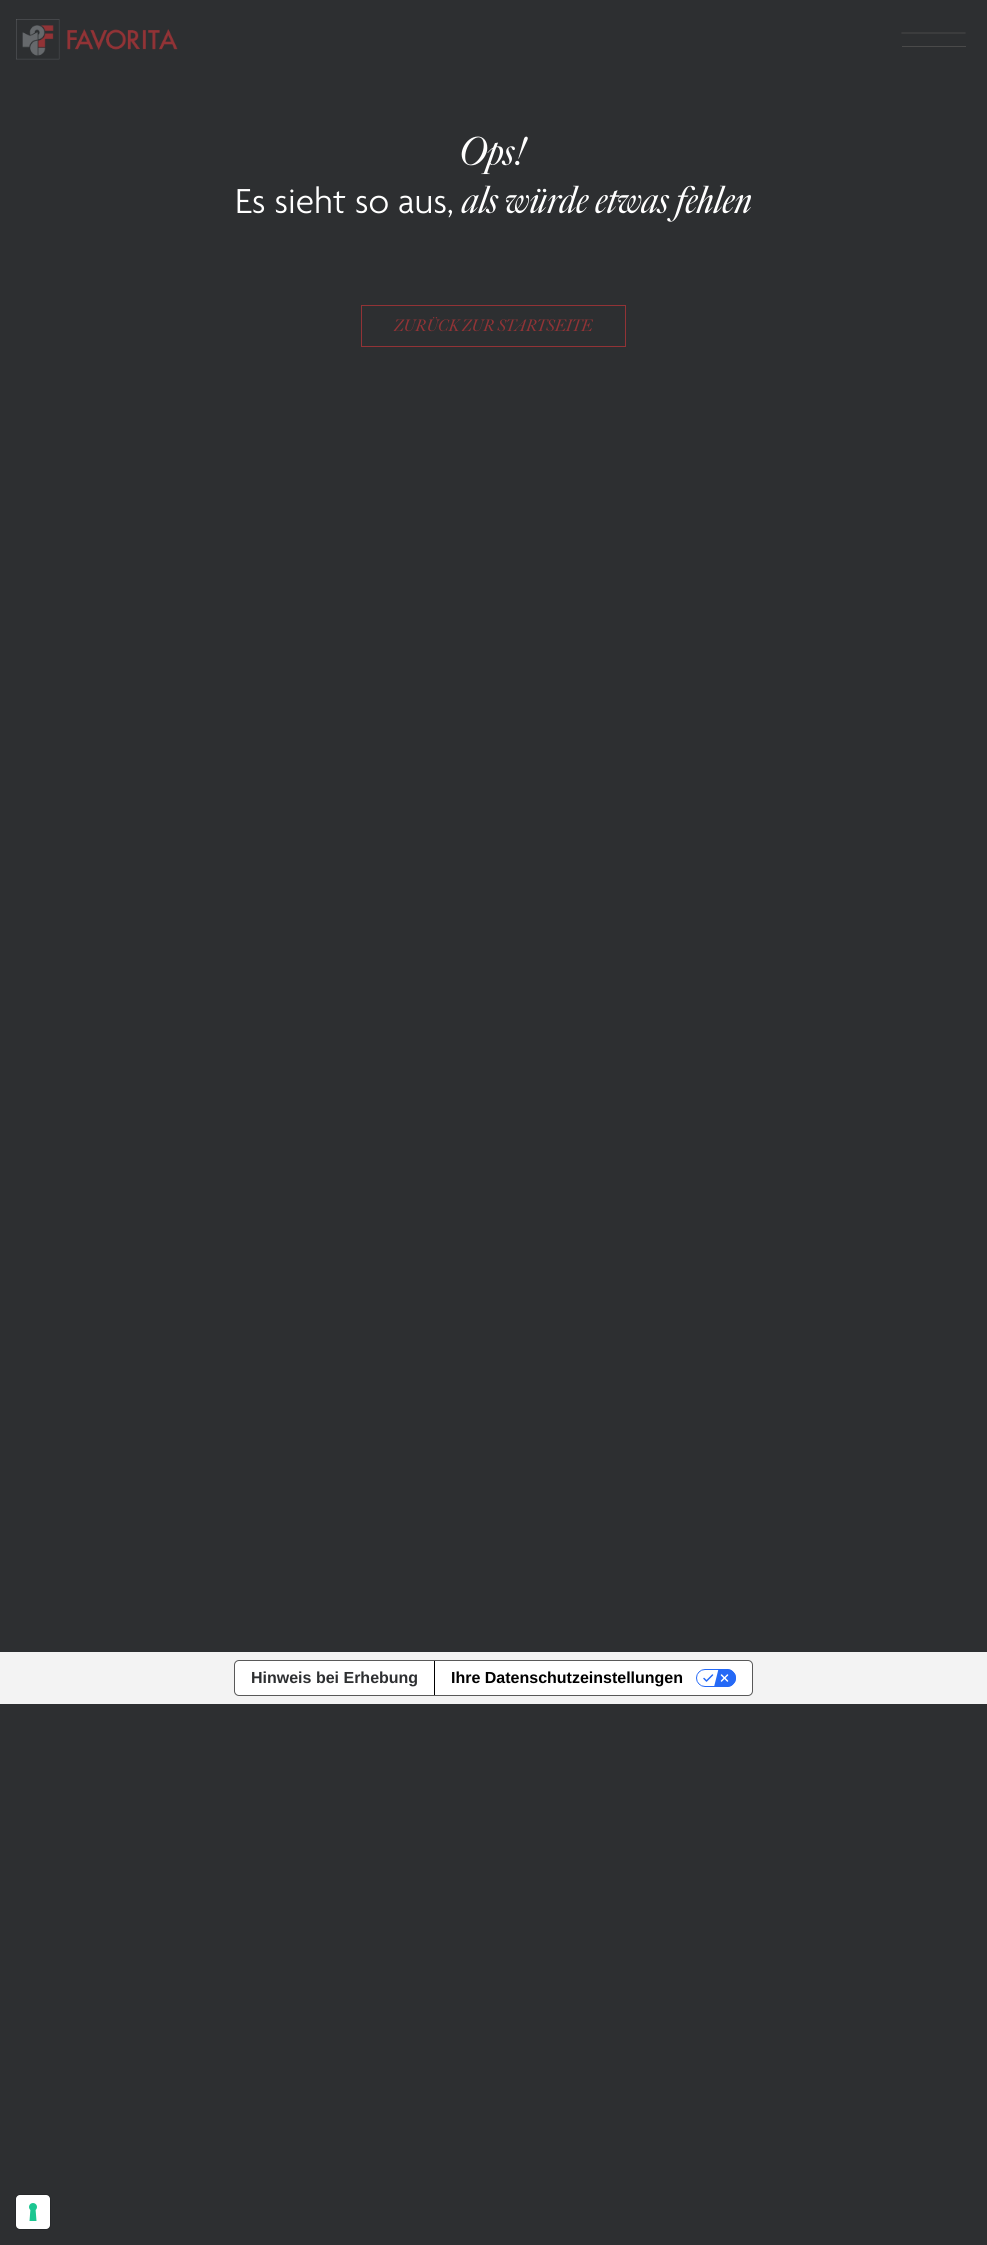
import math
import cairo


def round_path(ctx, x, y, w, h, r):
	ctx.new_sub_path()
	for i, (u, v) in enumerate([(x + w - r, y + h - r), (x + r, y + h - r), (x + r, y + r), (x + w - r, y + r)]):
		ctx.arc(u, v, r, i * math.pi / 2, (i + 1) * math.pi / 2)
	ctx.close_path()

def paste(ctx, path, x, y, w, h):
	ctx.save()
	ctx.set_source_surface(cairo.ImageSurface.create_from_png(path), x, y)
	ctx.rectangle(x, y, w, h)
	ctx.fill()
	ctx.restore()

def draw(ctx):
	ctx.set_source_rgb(0.176, 0.184, 0.192)
	ctx.paint()
	paste(ctx, 'media/1.png', 16, 19, 162, 41)
	ctx.new_path()
	ctx.move_to(901.5, 33)
	ctx.line_to(965.5, 33)
	ctx.set_source_rgb(0.29, 0.29, 0.29)
	ctx.set_line_width(1)
	ctx.stroke()
	ctx.rectangle(902, 46, 64, 1)
	ctx.fill()
	ctx.select_font_face('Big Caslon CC', cairo.FONT_SLANT_ITALIC)
	ctx.set_font_size(39)
	ctx.set_source_rgb(1, 1, 1)
	ctx.move_to(460, 165)
	ctx.show_text('Ops!')
	ctx.select_font_face('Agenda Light')
	ctx.set_font_size(37.5)
	ctx.move_to(235, 213)
	ctx.show_text('Es sieht so aus,')
	ctx.select_font_face('Big Caslon CC', cairo.FONT_SLANT_ITALIC)
	ctx.move_to(462, 213)
	ctx.show_text('als würde etwas fehlen')
	ctx.rectangle(361.5, 305.5, 264, 41)
	ctx.set_source_rgb(0.573, 0.2, 0.212)
	ctx.stroke()
	ctx.set_font_size(16)
	ctx.move_to(394, 331)
	ctx.show_text('ZURÜCK ZUR STARTSEITE')
	ctx.set_source_rgb(0.953, 0.953, 0.953)
	ctx.rectangle(0, 1652, 987, 52)
	ctx.fill()
	ctx.set_source_rgb(1, 1, 1)
	round_path(ctx, 234.5, 1660.5, 518, 35, 4.5)
	ctx.fill_preserve()
	ctx.set_source_rgb(0.349, 0.349, 0.349)
	ctx.stroke()
	ctx.select_font_face('Liberation Sans', cairo.FONT_SLANT_NORMAL, cairo.FONT_WEIGHT_BOLD)
	ctx.set_source_rgb(0.176, 0.184, 0.192)
	ctx.move_to(251, 1683)
	ctx.show_text('Hinweis bei Erhebung')
	ctx.set_source_rgb(0, 0, 0)
	ctx.rectangle(434, 1661, 1, 34)
	ctx.fill()
	ctx.move_to(451, 1683)
	ctx.show_text('Ihre Datenschutzeinstellungen')
	paste(ctx, 'media/2.png', 696, 1669, 40, 18)
	round_path(ctx, 15.5, 2194.5, 35, 35, 4.5)
	ctx.set_source_rgb(0.149, 0.157, 0.165)
	ctx.stroke()
	ctx.set_source_rgb(1, 1, 1)
	round_path(ctx, 16, 2195, 34, 34, 4)
	ctx.fill()
	paste(ctx, 'media/3.png', 29, 2203, 8, 18)


surface = cairo.ImageSurface(cairo.FORMAT_RGB24, 987, 2245)
ctx = cairo.Context(surface)
options = cairo.FontOptions()
options.set_hint_metrics(cairo.HINT_METRICS_OFF)
options.set_hint_style(cairo.HINT_STYLE_NONE)
ctx.set_font_options(options)
ctx.set_miter_limit(4)
draw(ctx)
surface.write_to_png('image.png')
